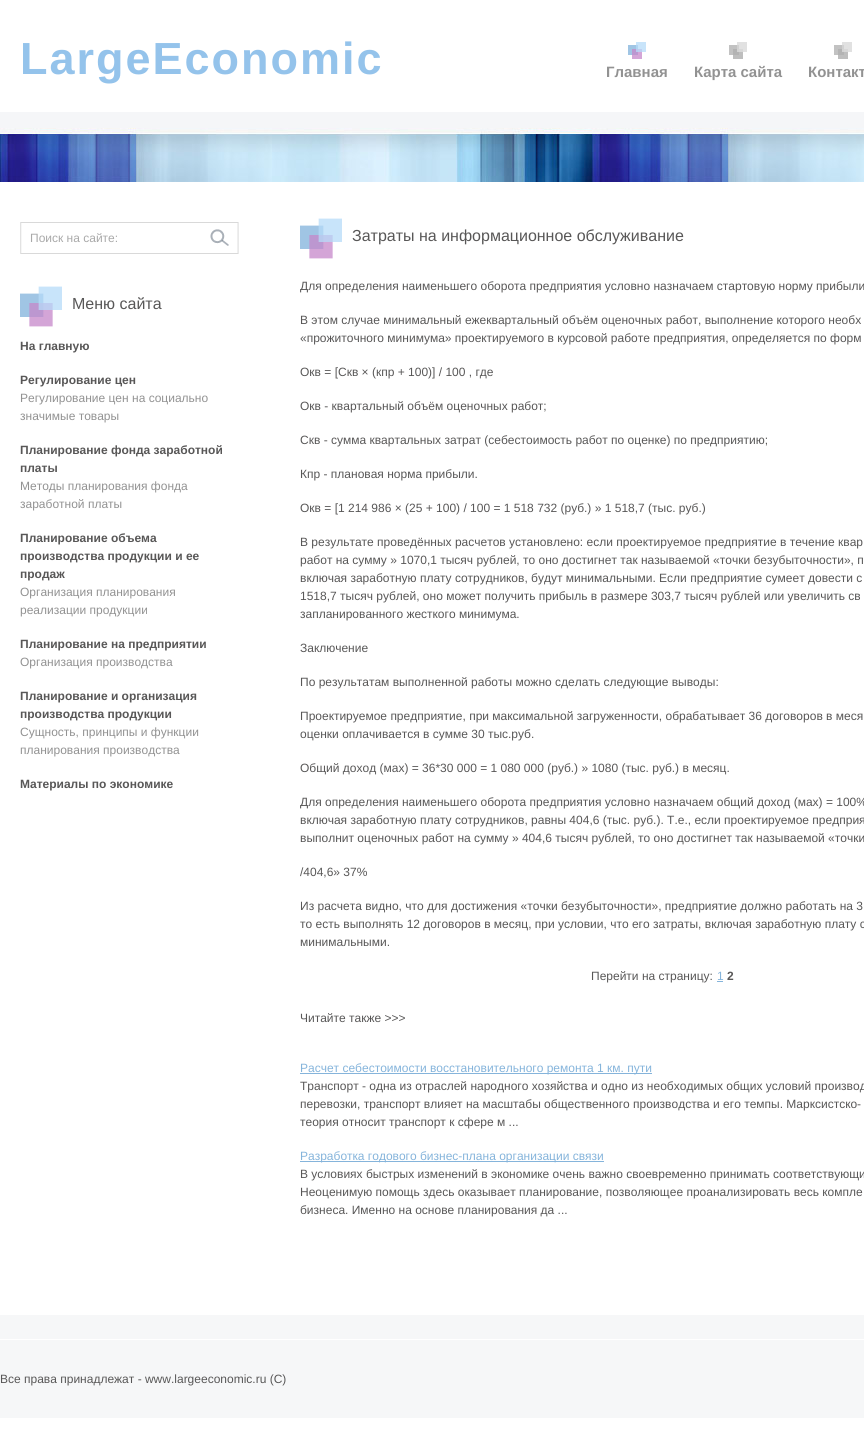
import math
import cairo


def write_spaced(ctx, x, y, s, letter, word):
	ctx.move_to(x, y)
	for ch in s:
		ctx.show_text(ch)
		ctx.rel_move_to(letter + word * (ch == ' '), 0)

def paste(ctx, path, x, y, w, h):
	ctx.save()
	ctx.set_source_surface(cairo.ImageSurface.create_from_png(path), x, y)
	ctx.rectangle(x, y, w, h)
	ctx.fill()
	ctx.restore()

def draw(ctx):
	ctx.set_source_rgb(1, 1, 1)
	ctx.paint()
	paste(ctx, 'media/1.png', 0, 112, 864, 70)
	ctx.select_font_face('Liberation Sans', cairo.FONT_SLANT_NORMAL, cairo.FONT_WEIGHT_BOLD)
	ctx.set_font_size(45)
	ctx.set_source_rgb(0.58, 0.765, 0.918)
	write_spaced(ctx, 20, 74, 'LargeEconomic', 2, 0)
	paste(ctx, 'media/2.png', 628, 42, 18, 17)
	ctx.set_font_size(15)
	ctx.set_source_rgb(0.573, 0.573, 0.573)
	ctx.move_to(606, 77)
	ctx.show_text('Главная')
	paste(ctx, 'media/3.png', 729, 42, 18, 17)
	ctx.move_to(694, 77)
	ctx.show_text('Карта сайта')
	paste(ctx, 'media/3.png', 834, 42, 18, 17)
	ctx.move_to(808, 77)
	ctx.show_text('Контакт')
	ctx.set_source_rgb(0.961, 0.965, 0.969)
	ctx.rectangle(0, 1315, 864, 24)
	ctx.fill()
	paste(ctx, 'media/4.png', 20, 222, 188, 32)
	ctx.select_font_face('Liberation Sans')
	ctx.set_font_size(12)
	ctx.set_source_rgb(0.663, 0.663, 0.663)
	ctx.move_to(30, 242)
	ctx.show_text('Поиск на сайте:')
	paste(ctx, 'media/5.png', 208, 222, 31, 32)
	paste(ctx, 'media/6.png', 20, 286, 42, 41)
	ctx.set_font_size(16)
	ctx.set_source_rgb(0.345, 0.341, 0.341)
	ctx.move_to(72, 309)
	ctx.show_text('Меню сайта')
	ctx.select_font_face('Liberation Sans', cairo.FONT_SLANT_NORMAL, cairo.FONT_WEIGHT_BOLD)
	ctx.set_font_size(12)
	ctx.move_to(20, 350)
	ctx.show_text('На главную')
	ctx.move_to(20, 384)
	ctx.show_text('Регулирование цен')
	ctx.select_font_face('Liberation Sans')
	ctx.set_source_rgb(0.573, 0.573, 0.573)
	ctx.move_to(20, 402)
	ctx.show_text('Регулирование цен на социально')
	ctx.move_to(20, 420)
	ctx.show_text('значимые товары')
	ctx.select_font_face('Liberation Sans', cairo.FONT_SLANT_NORMAL, cairo.FONT_WEIGHT_BOLD)
	ctx.set_source_rgb(0.345, 0.341, 0.341)
	ctx.move_to(20, 454)
	ctx.show_text('Планирование фонда заработной')
	ctx.move_to(20, 472)
	ctx.show_text('платы')
	ctx.select_font_face('Liberation Sans')
	ctx.set_source_rgb(0.573, 0.573, 0.573)
	ctx.move_to(20, 490)
	ctx.show_text('Методы планирования фонда')
	ctx.move_to(20, 508)
	ctx.show_text('заработной платы')
	ctx.select_font_face('Liberation Sans', cairo.FONT_SLANT_NORMAL, cairo.FONT_WEIGHT_BOLD)
	ctx.set_source_rgb(0.345, 0.341, 0.341)
	for x, y, s in [
		(20, 542, 'Планирование объема'),
		(20, 560, 'производства продукции и ее'),
		(20, 578, 'продаж'),
	]:
		ctx.move_to(x, y)
		ctx.show_text(s)
	ctx.select_font_face('Liberation Sans')
	ctx.set_source_rgb(0.573, 0.573, 0.573)
	ctx.move_to(20, 596)
	ctx.show_text('Организация планирования')
	ctx.move_to(20, 614)
	ctx.show_text('реализации продукции')
	ctx.select_font_face('Liberation Sans', cairo.FONT_SLANT_NORMAL, cairo.FONT_WEIGHT_BOLD)
	ctx.set_source_rgb(0.345, 0.341, 0.341)
	ctx.move_to(20, 648)
	ctx.show_text('Планирование на предприятии')
	ctx.select_font_face('Liberation Sans')
	ctx.set_source_rgb(0.573, 0.573, 0.573)
	ctx.move_to(20, 666)
	ctx.show_text('Организация производства')
	ctx.select_font_face('Liberation Sans', cairo.FONT_SLANT_NORMAL, cairo.FONT_WEIGHT_BOLD)
	ctx.set_source_rgb(0.345, 0.341, 0.341)
	ctx.move_to(20, 700)
	ctx.show_text('Планирование и организация')
	ctx.move_to(20, 718)
	ctx.show_text('производства продукции')
	ctx.select_font_face('Liberation Sans')
	ctx.set_source_rgb(0.573, 0.573, 0.573)
	ctx.move_to(20, 736)
	ctx.show_text('Сущность, принципы и функции')
	ctx.move_to(20, 754)
	ctx.show_text('планирования производства')
	ctx.select_font_face('Liberation Sans', cairo.FONT_SLANT_NORMAL, cairo.FONT_WEIGHT_BOLD)
	ctx.set_source_rgb(0.345, 0.341, 0.341)
	ctx.move_to(20, 788)
	ctx.show_text('Материалы по экономике')
	paste(ctx, 'media/6.png', 300, 218, 42, 41)
	ctx.select_font_face('Liberation Sans')
	ctx.set_font_size(16)
	ctx.move_to(352, 241)
	ctx.show_text('Затраты на информационное обслуживание')
	ctx.set_font_size(12)
	for x, y, s in [
		(300, 290, 'Для определения наименьшего оборота предприятия условно назначаем стартовую норму прибыли'),
		(300, 324, 'В этом случае минимальный ежеквартальный объём оценочных работ, выполнение которого необх'),
		(300, 342, '«прожиточного минимума» проектируемого в курсовой работе предприятия, определяется по форм'),
		(300, 376, 'Окв = [Скв × (кпр + 100)] / 100 , где'),
		(300, 410, 'Окв - квартальный объём оценочных работ;'),
		(300, 444, 'Скв - сумма квартальных затрат (себестоимость работ по оценке) по предприятию;'),
		(300, 478, 'Кпр - плановая норма прибыли.'),
		(300, 512, 'Окв = [1 214 986 × (25 + 100) / 100 = 1 518 732 (руб.) » 1 518,7 (тыс. руб.)'),
		(300, 546, 'В результате проведённых расчетов установлено: если проектируемое предприятие в течение квар'),
		(300, 564, 'работ на сумму » 1070,1 тысяч рублей, то оно достигнет так называемой «точки безубыточности», п'),
		(300, 582, 'включая заработную плату сотрудников, будут минимальными. Если предприятие сумеет довести с'),
		(300, 600, '1518,7 тысяч рублей, оно может получить прибыль в размере 303,7 тысяч рублей или увеличить св'),
		(300, 618, 'запланированного жесткого минимума.'),
		(300, 652, 'Заключение'),
		(300, 686, 'По результатам выполненной работы можно сделать следующие выводы:'),
		(300, 720, 'Проектируемое предприятие, при максимальной загруженности, обрабатывает 36 договоров в меся'),
		(300, 738, 'оценки оплачивается в сумме 30 тыс.руб.'),
		(300, 772, 'Общий доход (мах) = 36*30 000 = 1 080 000 (руб.) » 1080 (тыс. руб.) в месяц.'),
		(300, 806, 'Для определения наименьшего оборота предприятия условно назначаем общий доход (мах) = 100%'),
		(300, 824, 'включая заработную плату сотрудников, равны 404,6 (тыс. руб.). Т.е., если проектируемое предприя'),
		(300, 842, 'выполнит оценочных работ на сумму » 404,6 тысяч рублей, то оно достигнет так называемой «точки'),
		(300, 876, '/404,6» 37%'),
		(300, 910, 'Из расчета видно, что для достижения «точки безубыточности», предприятие должно работать на 3'),
		(300, 928, 'то есть выполнять 12 договоров в месяц, при условии, что его затраты, включая заработную плату с'),
		(300, 946, 'минимальными.'),
		(591, 980, 'Перейти на страницу:'),
	]:
		ctx.move_to(x, y)
		ctx.show_text(s)
	ctx.set_source_rgb(0.522, 0.706, 0.859)
	ctx.move_to(717, 980)
	ctx.show_text('1')
	ctx.rectangle(717, 981, 6, 1)
	ctx.fill()
	ctx.select_font_face('Liberation Sans', cairo.FONT_SLANT_NORMAL, cairo.FONT_WEIGHT_BOLD)
	ctx.set_source_rgb(0.345, 0.341, 0.341)
	ctx.move_to(727, 980)
	ctx.show_text('2')
	ctx.select_font_face('Liberation Sans')
	ctx.move_to(300, 1022)
	ctx.show_text('Читайте также >>>')
	ctx.set_source_rgb(0.522, 0.706, 0.859)
	ctx.rectangle(300, 1073, 352, 1)
	ctx.fill()
	ctx.move_to(300, 1072)
	ctx.show_text('Расчет себестоимости восстановительного ремонта 1 км. пути')
	ctx.set_source_rgb(0.345, 0.341, 0.341)
	for x, y, s in [
		(300, 1090, 'Транспорт - одна из отраслей народного хозяйства и одно из необходимых общих условий производ'),
		(300, 1108, 'перевозки, транспорт влияет на масштабы общественного производства и его темпы. Марксистско-'),
		(300, 1126, 'теория относит транспорт к сфере м ...'),
	]:
		ctx.move_to(x, y)
		ctx.show_text(s)
	ctx.set_source_rgb(0.522, 0.706, 0.859)
	ctx.rectangle(300, 1161, 304, 1)
	ctx.fill()
	ctx.move_to(300, 1160)
	ctx.show_text('Разработка годового бизнес-плана организации связи')
	ctx.set_source_rgb(0.345, 0.341, 0.341)
	for x, y, s in [
		(300, 1178, 'В условиях быстрых изменений в экономике очень важно своевременно принимать соответствующи'),
		(300, 1196, 'Неоценимую помощь здесь оказывает планирование, позволяющее проанализировать весь компле'),
		(300, 1214, 'бизнеса. Именно на основе планирования да ...'),
	]:
		ctx.move_to(x, y)
		ctx.show_text(s)
	ctx.set_source_rgb(0.961, 0.965, 0.969)
	ctx.rectangle(0, 1340, 864, 78)
	ctx.fill()
	ctx.set_source_rgb(0.345, 0.341, 0.341)
	ctx.move_to(0, 1383)
	ctx.show_text('Все права принадлежат - www.largeeconomic.ru (C)')


surface = cairo.ImageSurface(cairo.FORMAT_RGB24, 864, 1455)
ctx = cairo.Context(surface)
options = cairo.FontOptions()
options.set_hint_metrics(cairo.HINT_METRICS_OFF)
options.set_hint_style(cairo.HINT_STYLE_NONE)
ctx.set_font_options(options)
ctx.set_miter_limit(4)
draw(ctx)
surface.write_to_png('image.png')
